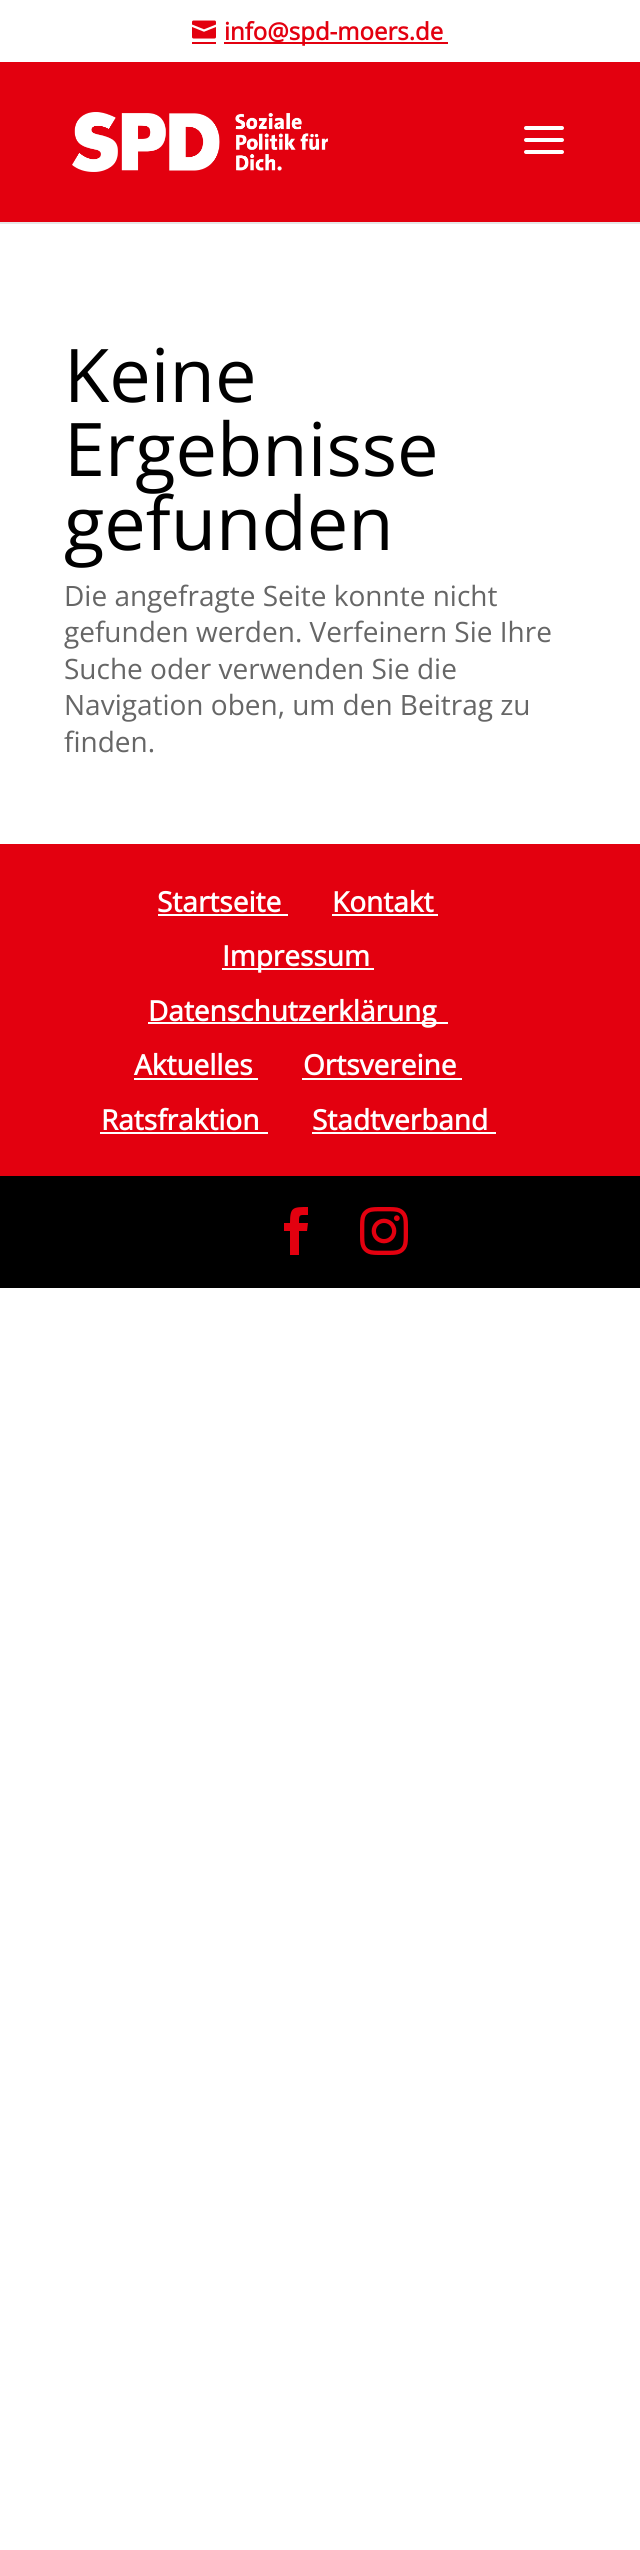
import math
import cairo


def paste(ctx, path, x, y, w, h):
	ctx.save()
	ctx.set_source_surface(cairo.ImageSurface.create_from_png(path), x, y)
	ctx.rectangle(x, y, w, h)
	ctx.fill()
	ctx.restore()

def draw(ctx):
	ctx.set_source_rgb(1, 1, 1)
	ctx.paint()
	paste(ctx, 'media/1.png', 192, 20, 24, 19)
	ctx.set_source_rgb(0.89, 0, 0.059)
	ctx.rectangle(224, 42, 224, 2)
	ctx.fill()
	ctx.select_font_face('Open Sans', cairo.FONT_SLANT_NORMAL, cairo.FONT_WEIGHT_BOLD)
	ctx.set_font_size(24)
	ctx.move_to(224, 40)
	ctx.show_text('info@spd-moers.de')
	ctx.rectangle(192, 42, 24, 2)
	ctx.fill()
	ctx.set_source_rgb(0.902, 0.902, 0.902)
	ctx.rectangle(0, 222, 640, 2)
	ctx.fill()
	ctx.set_source_rgb(0.89, 0, 0.059)
	ctx.rectangle(0, 62, 640, 160)
	ctx.fill()
	paste(ctx, 'media/2.png', 72, 112, 256, 60)
	paste(ctx, 'media/3.png', 524, 126, 40, 28)
	ctx.select_font_face('Open Sans')
	ctx.set_font_size(74)
	ctx.set_source_rgb(0, 0, 0)
	for x, y, s in [
		(64, 402, 'Keine'),
		(64, 476, 'Ergebnisse'),
		(64, 550, 'gefunden'),
	]:
		ctx.move_to(x, y)
		ctx.show_text(s)
	ctx.set_font_size(28)
	ctx.set_source_rgb(0.4, 0.4, 0.4)
	for x, y, s in [
		(64, 606, 'Die angefragte Seite konnte nicht'),
		(64, 642, 'gefunden werden. Verfeinern Sie Ihre'),
		(64, 679, 'Suche oder verwenden Sie die'),
		(64, 715, 'Navigation oben, um den Beitrag zu'),
		(64, 752, 'finden.'),
	]:
		ctx.move_to(x, y)
		ctx.show_text(s)
	ctx.set_source_rgb(0, 0, 0)
	ctx.rectangle(0, 1176, 640, 112)
	ctx.fill()
	ctx.set_source_rgb(0.89, 0, 0.059)
	ctx.rectangle(0, 844, 640, 332)
	ctx.fill()
	ctx.select_font_face('Open Sans', cairo.FONT_SLANT_NORMAL, cairo.FONT_WEIGHT_BOLD)
	ctx.set_source_rgb(1, 1, 1)
	ctx.move_to(157, 912)
	ctx.show_text('Startseite')
	ctx.rectangle(158, 914, 130, 2)
	ctx.fill()
	ctx.move_to(332, 912)
	ctx.show_text('Kontakt')
	ctx.rectangle(332, 914, 106, 2)
	ctx.fill()
	ctx.rectangle(222, 968, 152, 2)
	ctx.fill()
	ctx.move_to(222, 966)
	ctx.show_text('Impressum')
	ctx.rectangle(148, 1022, 300, 2)
	ctx.fill()
	ctx.move_to(148, 1021)
	ctx.show_text('Datenschutzerklärung')
	ctx.move_to(134, 1075)
	ctx.show_text('Aktuelles')
	ctx.rectangle(134, 1078, 124, 2)
	ctx.fill()
	ctx.move_to(303, 1075)
	ctx.show_text('Ortsvereine')
	ctx.rectangle(302, 1078, 160, 2)
	ctx.fill()
	ctx.move_to(101, 1130)
	ctx.show_text('Ratsfraktion')
	ctx.rectangle(100, 1132, 168, 2)
	ctx.fill()
	ctx.move_to(312, 1130)
	ctx.show_text('Stadtverband')
	ctx.rectangle(312, 1132, 184, 2)
	ctx.fill()
	ctx.set_source_rgb(0.89, 0, 0.059)
	ctx.new_path()
	ctx.move_to(290, 1255)
	ctx.line_to(299, 1255)
	ctx.line_to(299, 1231)
	ctx.line_to(307, 1231)
	ctx.line_to(308, 1223)
	ctx.line_to(299, 1223)
	ctx.curve_to(299, 1214, 299, 1215, 308, 1215)
	ctx.line_to(308, 1207)
	ctx.curve_to(293, 1207, 290, 1207, 290, 1223)
	ctx.line_to(284, 1223)
	ctx.line_to(284, 1231)
	ctx.line_to(290, 1231)
	ctx.close_path()
	ctx.fill()
	paste(ctx, 'media/4.png', 360, 1207, 48, 48)


surface = cairo.ImageSurface(cairo.FORMAT_RGB24, 640, 2550)
ctx = cairo.Context(surface)
options = cairo.FontOptions()
options.set_hint_metrics(cairo.HINT_METRICS_OFF)
options.set_hint_style(cairo.HINT_STYLE_NONE)
ctx.set_font_options(options)
ctx.set_miter_limit(4)
draw(ctx)
surface.write_to_png('image.png')
